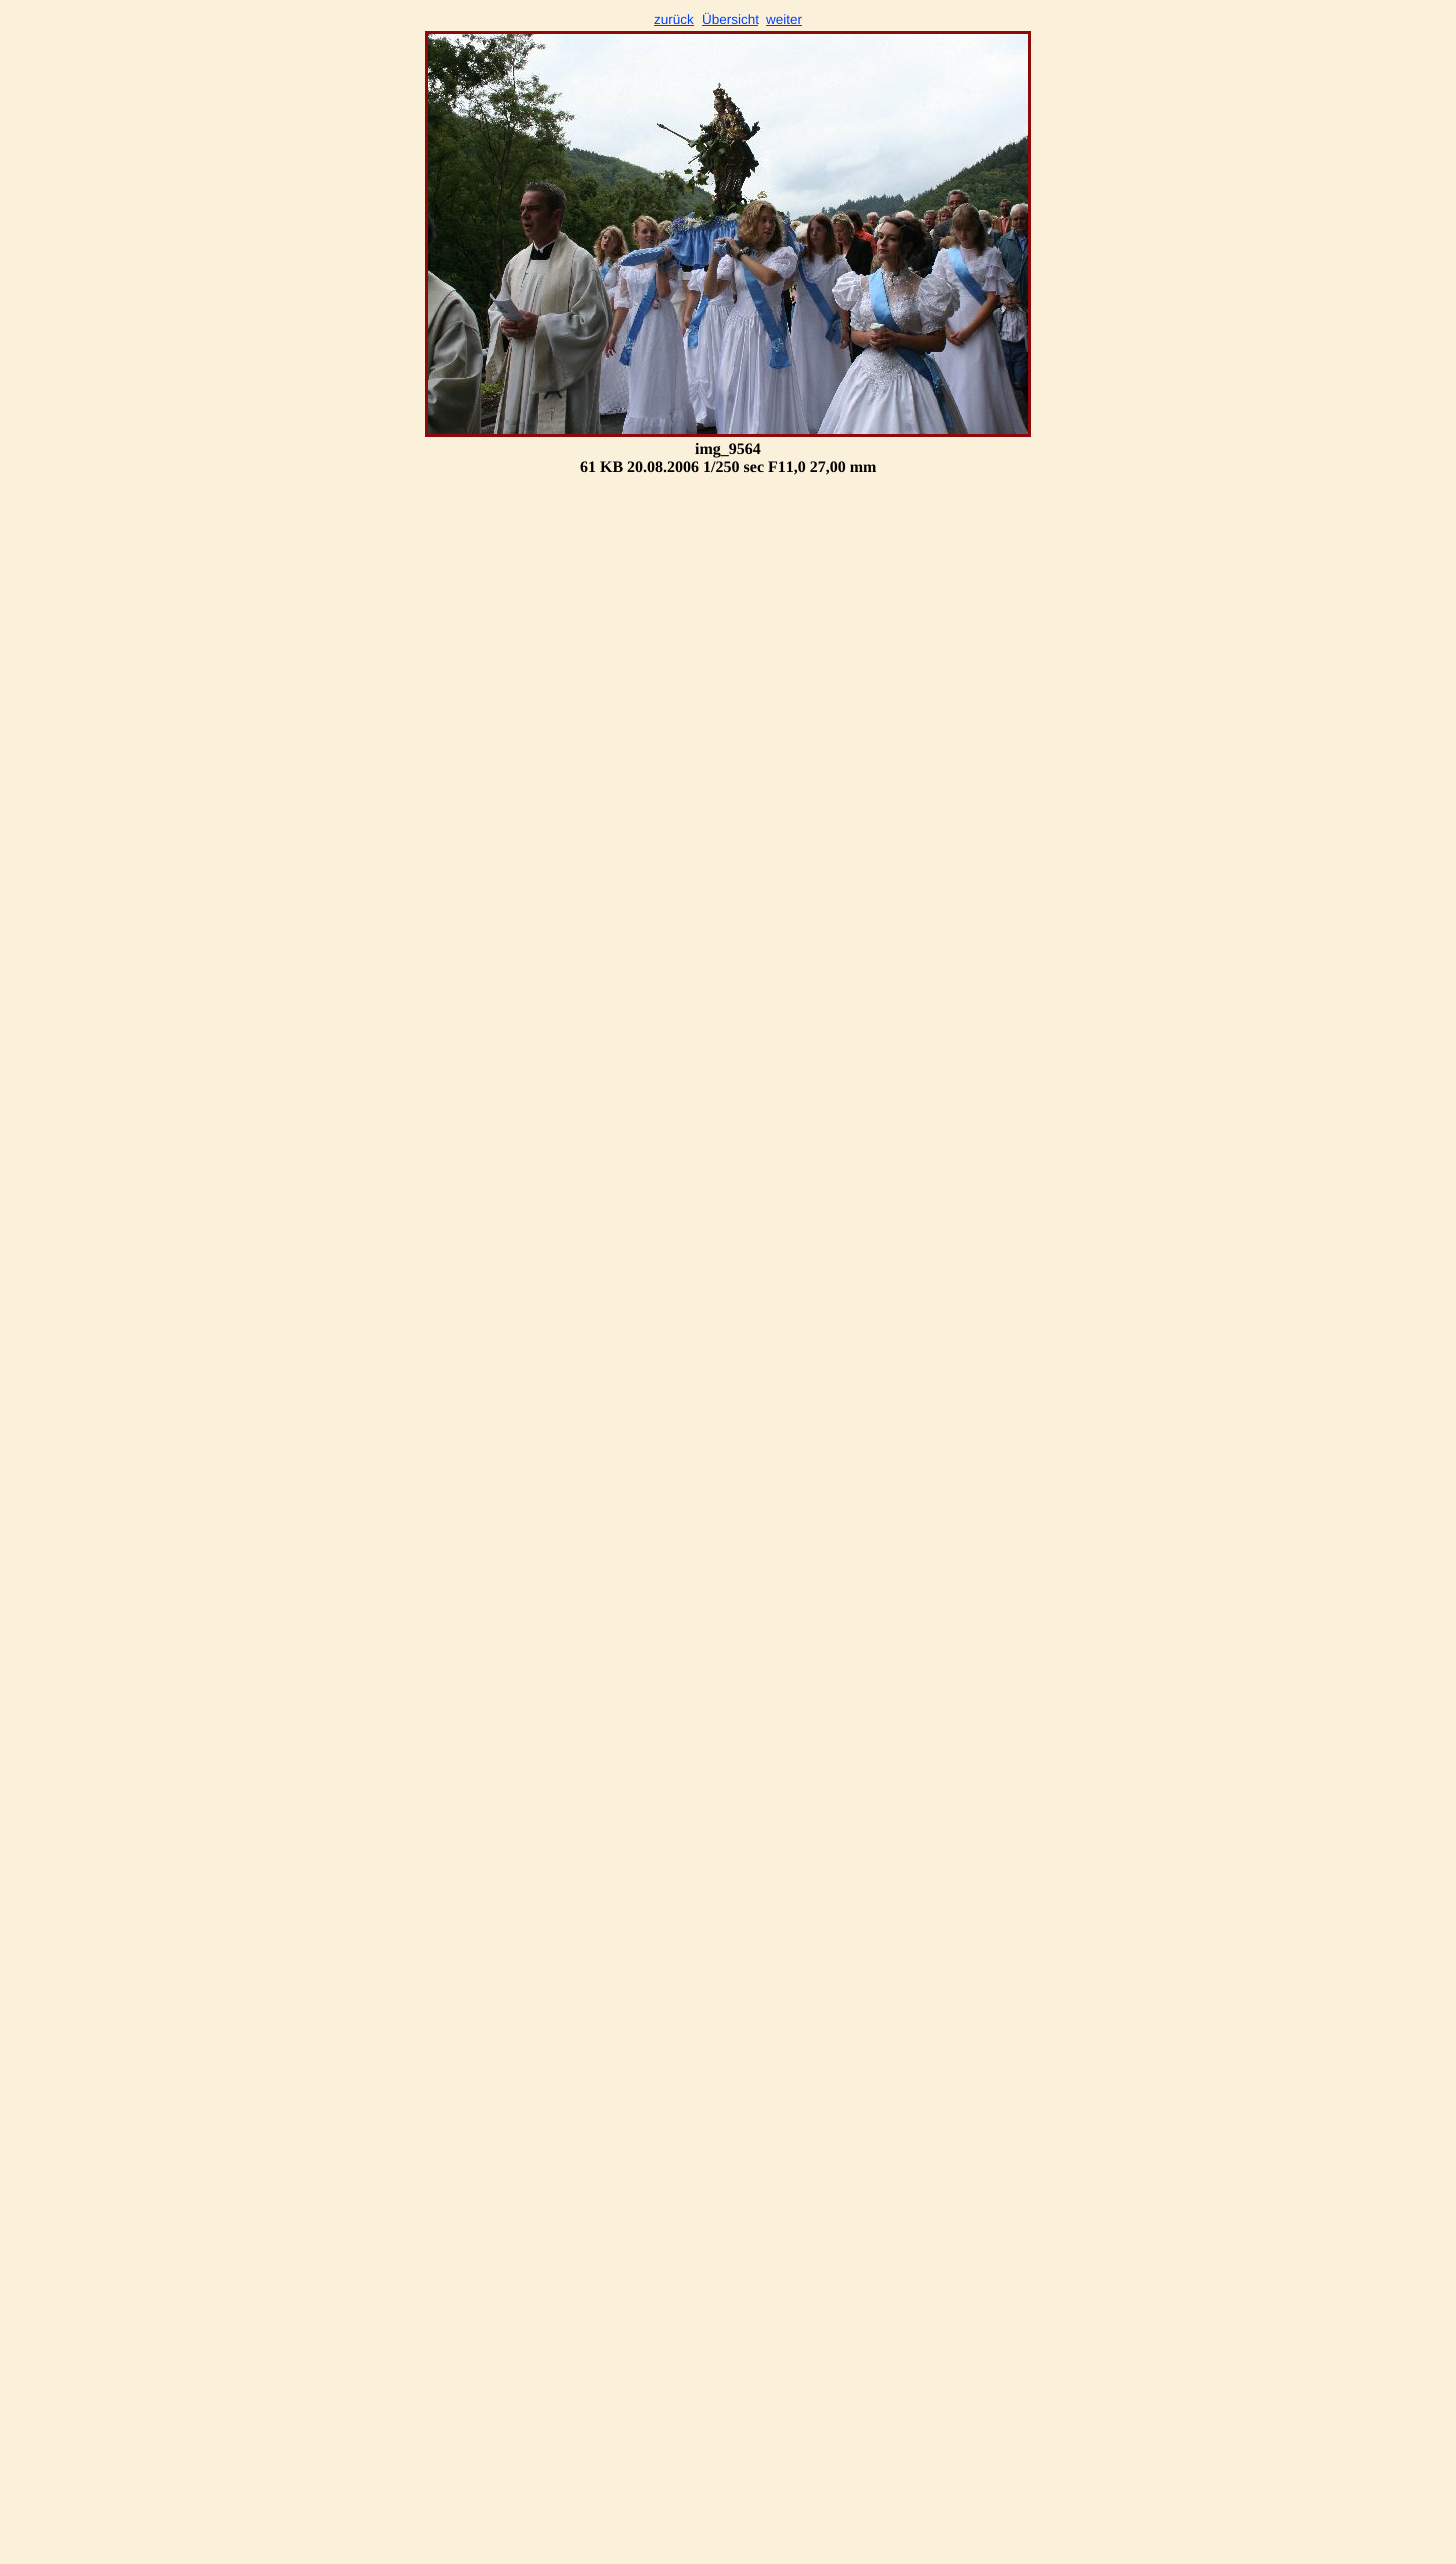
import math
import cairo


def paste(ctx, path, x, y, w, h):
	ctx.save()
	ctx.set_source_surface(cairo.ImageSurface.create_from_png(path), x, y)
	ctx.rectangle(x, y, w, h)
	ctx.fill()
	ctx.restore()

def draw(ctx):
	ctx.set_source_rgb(0.984, 0.941, 0.855)
	ctx.paint()
	ctx.select_font_face('Liberation Sans')
	ctx.set_font_size(13.5)
	ctx.set_source_rgb(0, 0.251, 1)
	ctx.move_to(654, 24)
	ctx.show_text('zurück')
	ctx.rectangle(654, 25, 40, 1)
	ctx.fill()
	ctx.move_to(702, 24)
	ctx.show_text('Übersicht')
	ctx.rectangle(702, 25, 56, 1)
	ctx.fill()
	ctx.move_to(766, 24)
	ctx.show_text('weiter')
	ctx.rectangle(766, 25, 36, 1)
	ctx.fill()
	ctx.rectangle(426.5, 32.5, 603, 403)
	ctx.set_source_rgb(0.561, 0.039, 0.043)
	ctx.set_line_width(3)
	ctx.stroke()
	paste(ctx, 'media/1.png', 428, 34, 600, 400)
	ctx.select_font_face('Liberation Serif', cairo.FONT_SLANT_NORMAL, cairo.FONT_WEIGHT_BOLD)
	ctx.set_font_size(16)
	ctx.set_source_rgb(0, 0, 0)
	ctx.move_to(695, 454)
	ctx.show_text('img_9564')
	ctx.move_to(580, 472)
	ctx.show_text('61 KB 20.08.2006 1/250 sec F11,0 27,00 mm')


surface = cairo.ImageSurface(cairo.FORMAT_RGB24, 1456, 2564)
ctx = cairo.Context(surface)
options = cairo.FontOptions()
options.set_hint_metrics(cairo.HINT_METRICS_OFF)
options.set_hint_style(cairo.HINT_STYLE_NONE)
ctx.set_font_options(options)
ctx.set_miter_limit(4)
draw(ctx)
surface.write_to_png('image.png')
